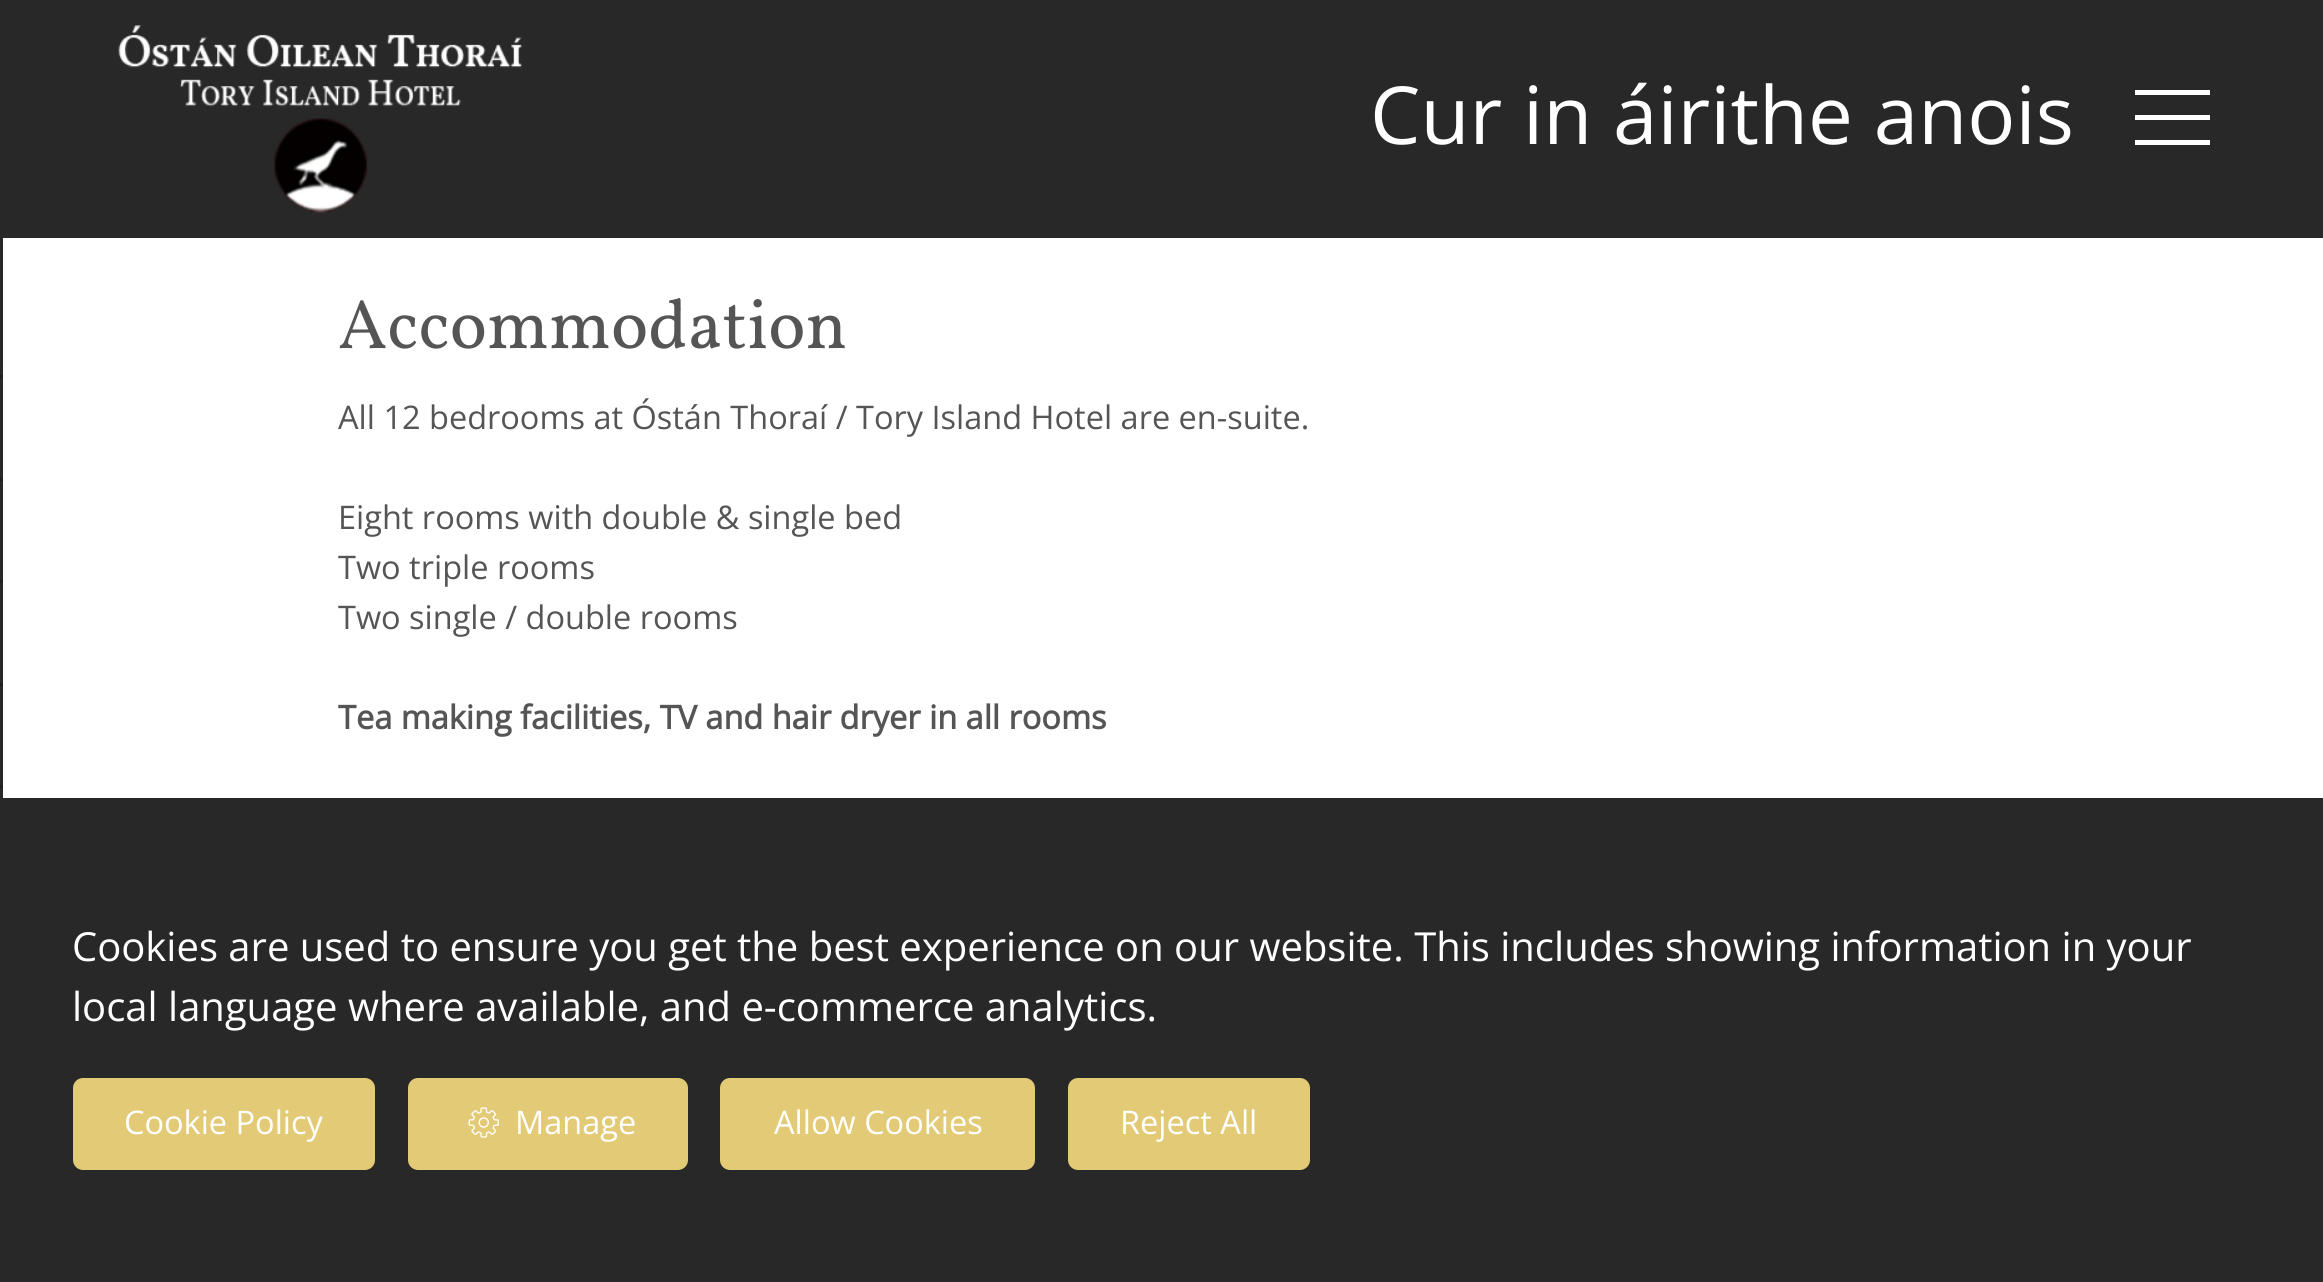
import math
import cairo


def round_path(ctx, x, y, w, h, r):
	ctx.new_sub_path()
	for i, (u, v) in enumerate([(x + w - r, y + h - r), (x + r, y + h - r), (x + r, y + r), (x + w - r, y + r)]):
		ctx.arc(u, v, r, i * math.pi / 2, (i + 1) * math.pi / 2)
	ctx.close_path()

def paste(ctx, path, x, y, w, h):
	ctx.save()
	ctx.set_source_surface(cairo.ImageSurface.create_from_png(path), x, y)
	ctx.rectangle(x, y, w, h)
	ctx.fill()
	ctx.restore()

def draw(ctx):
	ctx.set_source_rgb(1, 1, 1)
	ctx.paint()
	ctx.set_source_rgb(0.157, 0.157, 0.157)
	ctx.rectangle(3, 0, 2320, 238)
	ctx.fill()
	paste(ctx, 'media/1.png', 118, 25, 404, 188)
	ctx.rectangle(0, 0, 3, 798)
	ctx.fill()
	ctx.set_source_rgb(0.118, 0.118, 0.118)
	ctx.rectangle(0, 375, 3, 3)
	ctx.rectangle(0, 478, 3, 3)
	ctx.rectangle(0, 580, 3, 3)
	ctx.rectangle(0, 683, 3, 3)
	ctx.rectangle(0, 785, 3, 3)
	ctx.fill()
	ctx.select_font_face('Open Sans')
	ctx.set_font_size(80)
	ctx.set_source_rgb(1, 1, 1)
	ctx.move_to(1370, 144)
	ctx.show_text('Cur in áirithe anois')
	ctx.rectangle(2135, 115, 75, 5)
	ctx.rectangle(2135, 90, 75, 5)
	ctx.rectangle(2135, 140, 75, 5)
	ctx.fill()
	ctx.select_font_face('Vollkorn')
	ctx.set_font_size(70)
	ctx.set_source_rgb(0.333, 0.333, 0.333)
	ctx.move_to(338, 348)
	ctx.show_text('Accommodation')
	ctx.select_font_face('Open Sans')
	ctx.set_font_size(32.5)
	for x, y, s in [
		(338, 429, 'All 12 bedrooms at Óstán Thoraí / Tory Island Hotel are en-suite.'),
		(338, 529, 'Eight rooms with double & single bed'),
		(338, 579, 'Two triple rooms'),
		(338, 629, 'Two single / double rooms'),
	]:
		ctx.move_to(x, y)
		ctx.show_text(s)
	ctx.select_font_face('Open Sans', cairo.FONT_SLANT_NORMAL, cairo.FONT_WEIGHT_BOLD)
	ctx.move_to(338, 729)
	ctx.show_text('Tea making facilities, TV and hair dryer in all rooms')
	ctx.set_source_rgb(0.157, 0.157, 0.157)
	ctx.rectangle(0, 798, 2323, 484)
	ctx.fill()
	ctx.select_font_face('Open Sans')
	ctx.set_font_size(40)
	ctx.set_source_rgb(1, 1, 1)
	ctx.move_to(72, 961)
	ctx.show_text('Cookies are used to ensure you get the best experience on our website. This includes showing information in your')
	ctx.move_to(72, 1021)
	ctx.show_text('local language where available, and e-commerce analytics.')
	ctx.set_source_rgb(0.89, 0.792, 0.463)
	round_path(ctx, 74.5, 1079.5, 299, 89, 8.5)
	ctx.fill_preserve()
	ctx.set_line_width(3)
	ctx.stroke()
	ctx.set_font_size(32.5)
	ctx.set_source_rgb(1, 1, 1)
	ctx.move_to(124, 1134)
	ctx.show_text('Cookie Policy')
	ctx.set_source_rgb(0.89, 0.792, 0.463)
	round_path(ctx, 409.5, 1079.5, 277, 89, 8.5)
	ctx.fill_preserve()
	ctx.stroke()
	paste(ctx, 'media/2.png', 468, 1107, 31, 31)
	ctx.set_source_rgb(1, 1, 1)
	ctx.move_to(515, 1134)
	ctx.show_text('Manage')
	ctx.set_source_rgb(0.89, 0.792, 0.463)
	round_path(ctx, 721.5, 1079.5, 312, 89, 8.5)
	ctx.fill_preserve()
	ctx.stroke()
	ctx.set_source_rgb(1, 1, 1)
	ctx.move_to(774, 1134)
	ctx.show_text('Allow Cookies')
	ctx.set_source_rgb(0.89, 0.792, 0.463)
	round_path(ctx, 1069.5, 1079.5, 239, 89, 8.5)
	ctx.fill_preserve()
	ctx.stroke()
	ctx.set_source_rgb(1, 1, 1)
	ctx.move_to(1120, 1134)
	ctx.show_text('Reject All')


surface = cairo.ImageSurface(cairo.FORMAT_RGB24, 2323, 1282)
ctx = cairo.Context(surface)
options = cairo.FontOptions()
options.set_hint_metrics(cairo.HINT_METRICS_OFF)
options.set_hint_style(cairo.HINT_STYLE_NONE)
ctx.set_font_options(options)
ctx.set_miter_limit(4)
draw(ctx)
surface.write_to_png('image.png')
